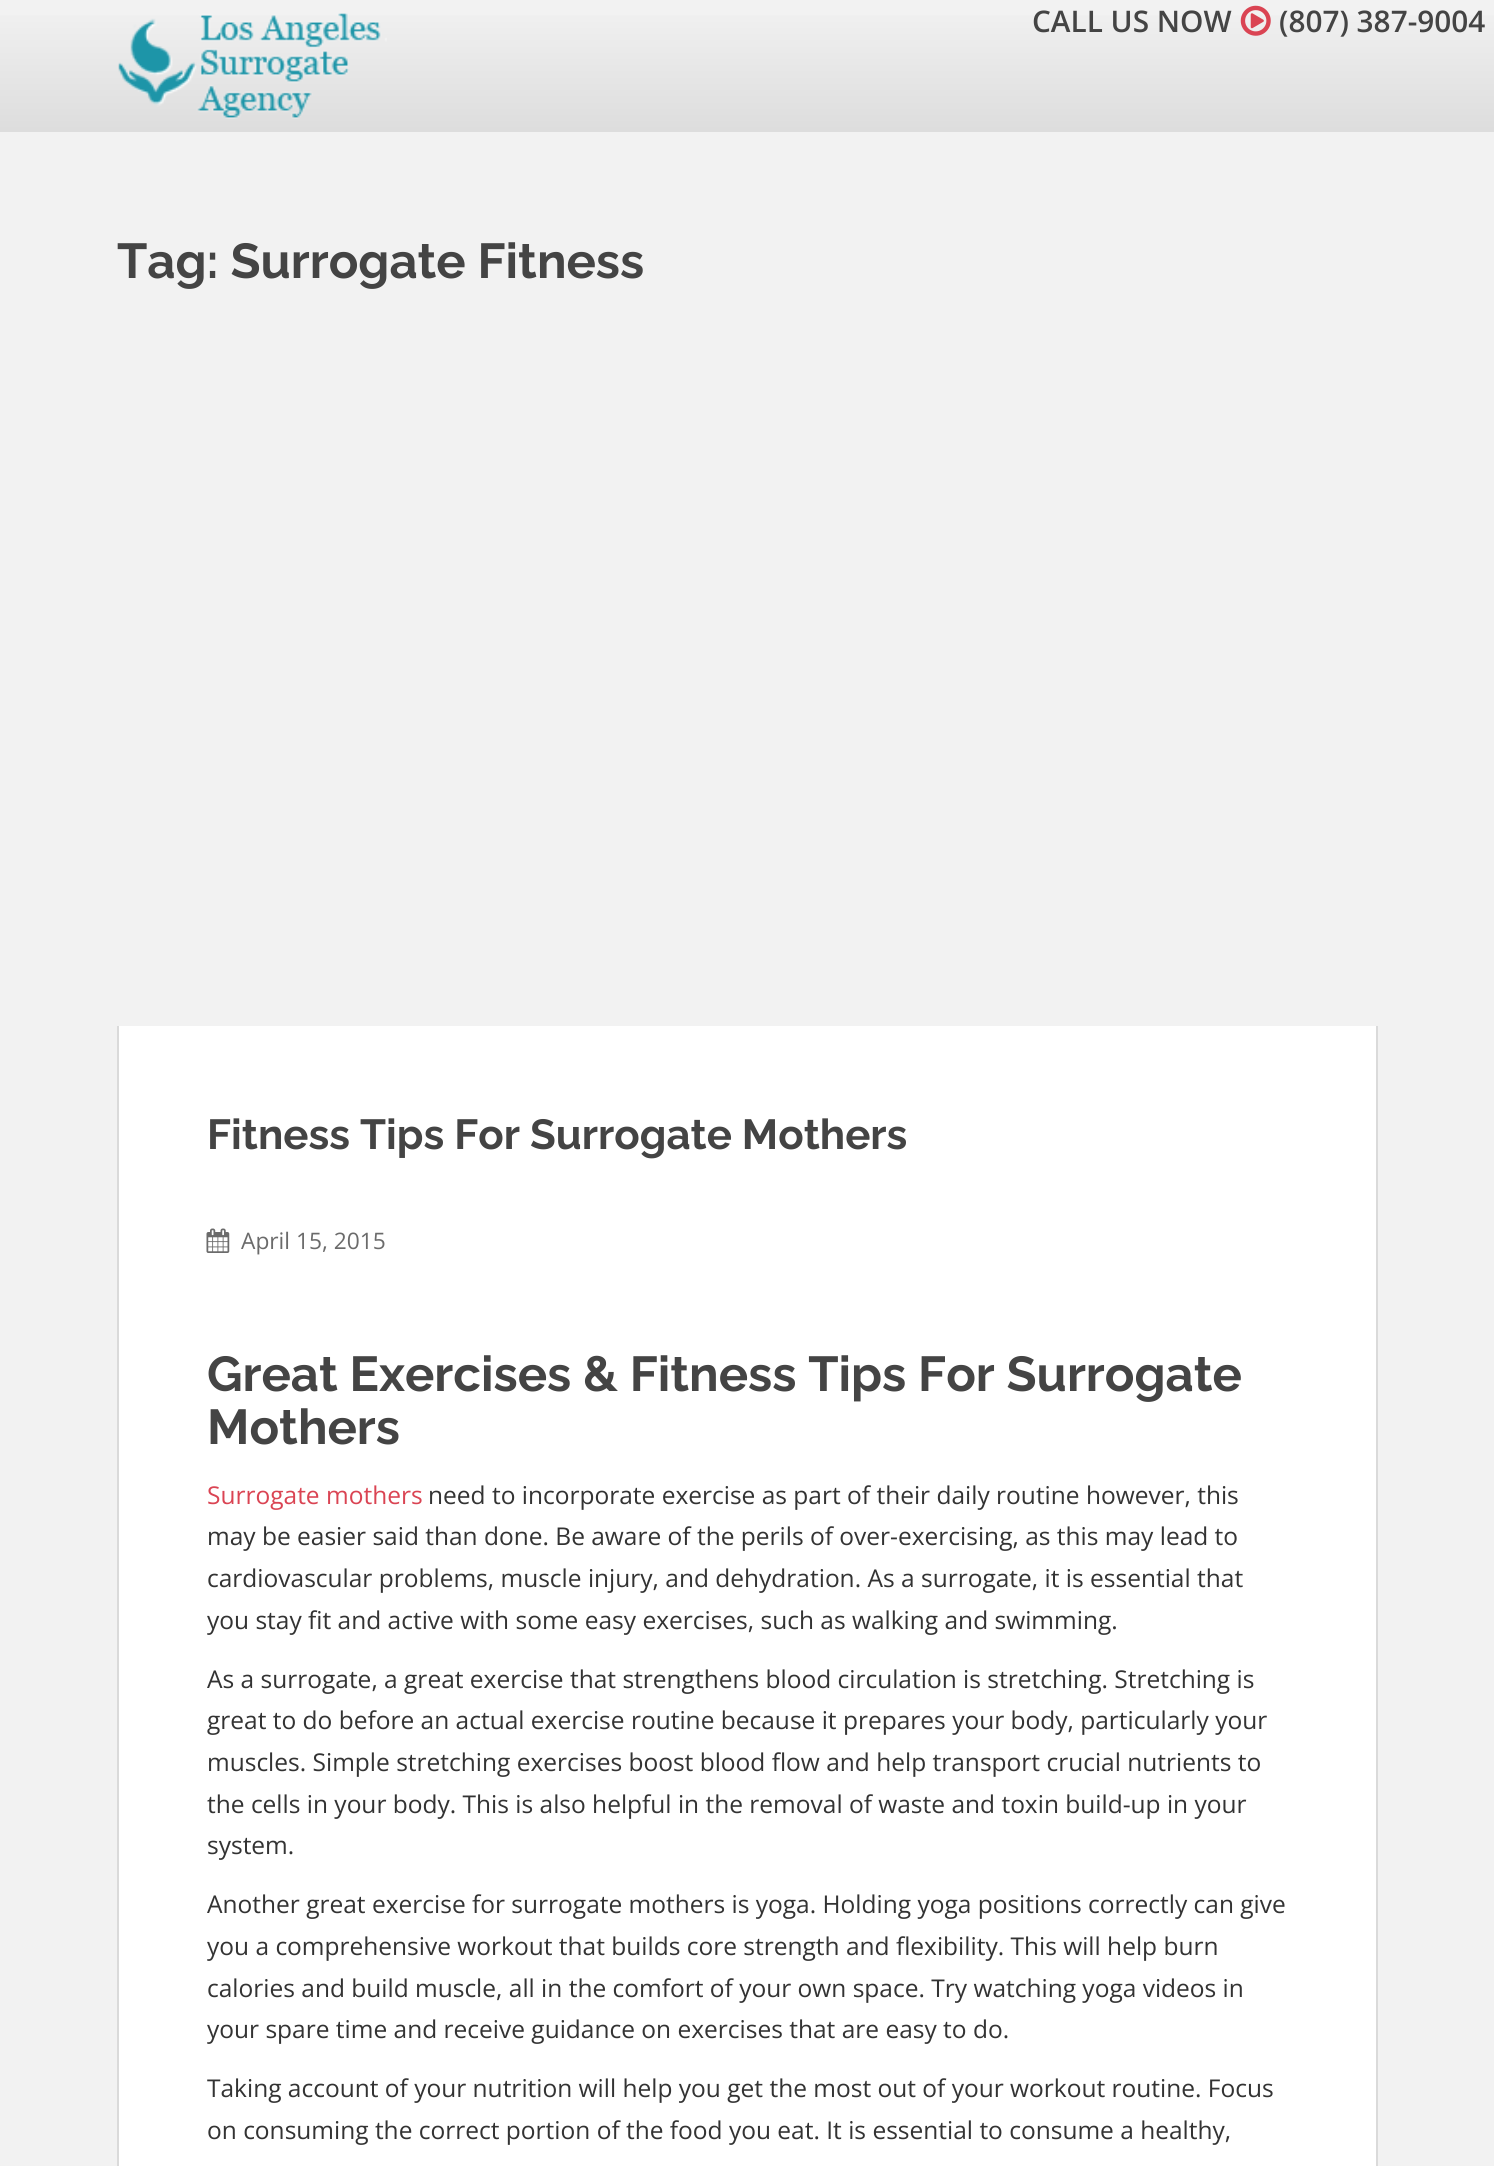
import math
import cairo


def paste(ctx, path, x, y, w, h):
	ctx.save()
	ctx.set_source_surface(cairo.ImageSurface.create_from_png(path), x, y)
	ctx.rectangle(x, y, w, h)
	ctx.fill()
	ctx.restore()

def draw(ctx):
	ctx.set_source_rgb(0.949, 0.949, 0.949)
	ctx.paint()
	gradient = cairo.LinearGradient(747, 0, 747, 130)
	gradient.add_color_stop_rgba(0, 0.949, 0.949, 0.949, 1)
	gradient.add_color_stop_rgba(1, 0.867, 0.867, 0.867, 1)
	ctx.set_source(gradient)
	ctx.rectangle(0, 15, 1494, 115)
	ctx.fill()
	ctx.set_source_rgb(0.867, 0.867, 0.867)
	ctx.rectangle(0, 130, 1494, 2)
	ctx.fill()
	paste(ctx, 'media/1.png', 118, 13, 269, 106)
	ctx.select_font_face('Open Sans SemiBold')
	ctx.set_font_size(29.75)
	ctx.set_source_rgb(0.267, 0.267, 0.267)
	ctx.move_to(1032, 32)
	ctx.show_text('CALL US NOW')
	paste(ctx, 'media/2.png', 1240, 5, 31, 31)
	ctx.move_to(1279, 32)
	ctx.show_text('(807) 387-9004')
	ctx.select_font_face('Raleway', cairo.FONT_SLANT_NORMAL, cairo.FONT_WEIGHT_BOLD)
	ctx.set_font_size(49)
	ctx.move_to(117, 278)
	ctx.show_text('Tag: Surrogate Fitness')
	ctx.set_source_rgb(1, 1, 1)
	ctx.rectangle(119, 1026, 1257, 1140)
	ctx.fill()
	ctx.set_source_rgb(0.855, 0.855, 0.855)
	ctx.rectangle(1376, 1026, 2, 1140)
	ctx.rectangle(117, 1026, 2, 1140)
	ctx.fill()
	ctx.set_font_size(42)
	ctx.set_source_rgb(0.267, 0.267, 0.267)
	ctx.move_to(207, 1149)
	ctx.show_text('Fitness Tips For Surrogate Mothers')
	paste(ctx, 'media/3.png', 206, 1228, 24, 25)
	ctx.select_font_face('Open Sans')
	ctx.set_font_size(22.75)
	ctx.set_source_rgb(0.42, 0.42, 0.42)
	ctx.move_to(241, 1249)
	ctx.show_text('April 15, 2015')
	ctx.select_font_face('Raleway', cairo.FONT_SLANT_NORMAL, cairo.FONT_WEIGHT_BOLD)
	ctx.set_font_size(49)
	ctx.set_source_rgb(0.267, 0.267, 0.267)
	ctx.move_to(207, 1391)
	ctx.show_text('Great Exercises & Fitness Tips For Surrogate')
	ctx.move_to(207, 1444)
	ctx.show_text('Mothers')
	ctx.select_font_face('Open Sans')
	ctx.set_font_size(24.5)
	ctx.set_source_rgb(0.855, 0.267, 0.325)
	ctx.move_to(207, 1504)
	ctx.show_text('Surrogate mothers')
	ctx.set_source_rgb(0.2, 0.2, 0.2)
	for x, y, s in [
		(428, 1504, 'need to incorporate exercise as part of their daily routine however, this'),
		(207, 1545, 'may be easier said than done. Be aware of the perils of over-exercising, as this may lead to'),
		(207, 1587, 'cardiovascular problems, muscle injury, and dehydration. As a surrogate, it is essential that'),
		(207, 1629, 'you stay fit and active with some easy exercises, such as walking and swimming.'),
		(207, 1688, 'As a surrogate, a great exercise that strengthens blood circulation is stretching. Stretching is'),
		(207, 1729, 'great to do before an actual exercise routine because it prepares your body, particularly your'),
		(207, 1771, 'muscles. Simple stretching exercises boost blood flow and help transport crucial nutrients to'),
		(207, 1813, 'the cells in your body. This is also helpful in the removal of waste and toxin build-up in your'),
		(207, 1854, 'system.'),
		(207, 1913, 'Another great exercise for surrogate mothers is yoga. Holding yoga positions correctly can give'),
		(207, 1955, 'you a comprehensive workout that builds core strength and flexibility. This will help burn'),
		(207, 1997, 'calories and build muscle, all in the comfort of your own space. Try watching yoga videos in'),
		(207, 2038, 'your spare time and receive guidance on exercises that are easy to do.'),
		(207, 2097, 'Taking account of your nutrition will help you get the most out of your workout routine. Focus'),
		(207, 2139, 'on consuming the correct portion of the food you eat. It is essential to consume a healthy,'),
	]:
		ctx.move_to(x, y)
		ctx.show_text(s)


surface = cairo.ImageSurface(cairo.FORMAT_RGB24, 1494, 2166)
ctx = cairo.Context(surface)
options = cairo.FontOptions()
options.set_hint_metrics(cairo.HINT_METRICS_OFF)
options.set_hint_style(cairo.HINT_STYLE_NONE)
ctx.set_font_options(options)
ctx.set_miter_limit(4)
draw(ctx)
surface.write_to_png('image.png')
